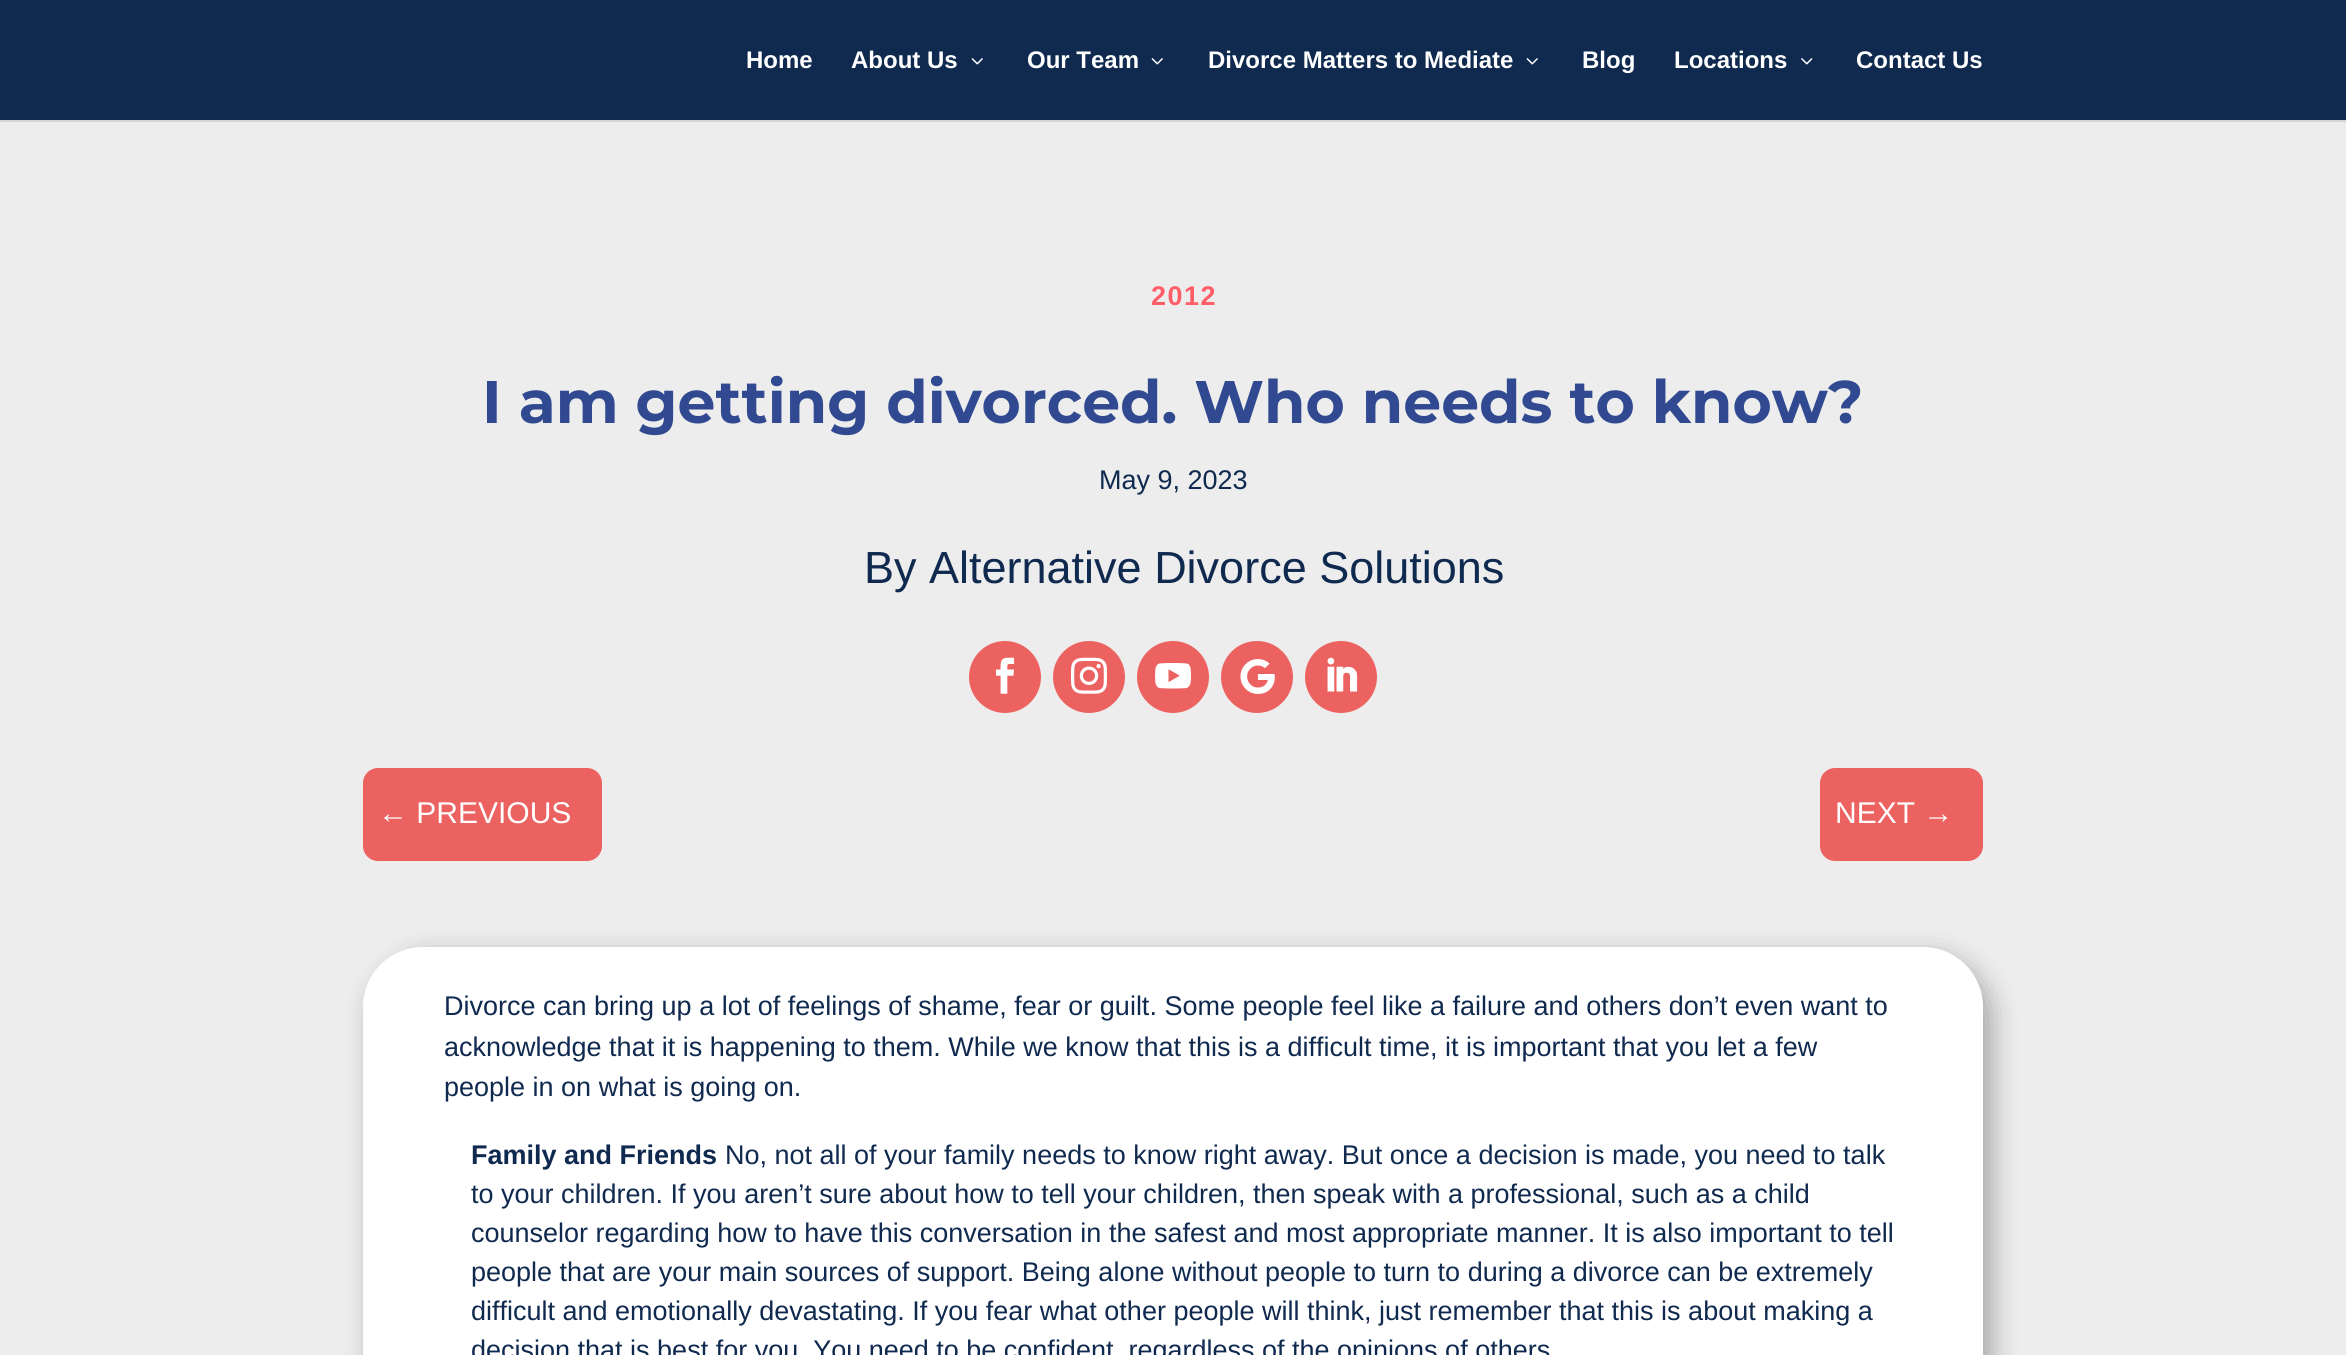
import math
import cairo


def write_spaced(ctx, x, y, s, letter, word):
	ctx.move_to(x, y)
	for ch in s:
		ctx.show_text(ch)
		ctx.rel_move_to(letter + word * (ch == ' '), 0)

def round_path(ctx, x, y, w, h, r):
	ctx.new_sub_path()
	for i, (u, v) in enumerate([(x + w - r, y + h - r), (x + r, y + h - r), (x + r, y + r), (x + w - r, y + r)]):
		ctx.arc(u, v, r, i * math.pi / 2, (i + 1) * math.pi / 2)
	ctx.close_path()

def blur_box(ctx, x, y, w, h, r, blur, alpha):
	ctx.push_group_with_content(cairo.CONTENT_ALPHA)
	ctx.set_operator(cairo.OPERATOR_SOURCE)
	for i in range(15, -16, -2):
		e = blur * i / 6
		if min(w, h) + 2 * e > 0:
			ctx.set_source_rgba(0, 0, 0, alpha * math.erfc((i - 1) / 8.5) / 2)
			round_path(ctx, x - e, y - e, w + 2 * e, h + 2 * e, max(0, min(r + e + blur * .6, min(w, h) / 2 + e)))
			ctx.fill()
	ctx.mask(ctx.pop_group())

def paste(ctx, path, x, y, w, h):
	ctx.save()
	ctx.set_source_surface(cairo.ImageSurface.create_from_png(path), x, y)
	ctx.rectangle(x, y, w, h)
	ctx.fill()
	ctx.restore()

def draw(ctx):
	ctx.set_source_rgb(0.929, 0.929, 0.929)
	ctx.paint()
	ctx.set_source_rgb(0.835, 0.835, 0.835)
	ctx.rectangle(0, 120, 2346, 2)
	ctx.fill()
	ctx.set_source_rgb(0.059, 0.161, 0.31)
	ctx.rectangle(0, 0, 2346, 120)
	ctx.fill()
	ctx.select_font_face('Liberation Sans', cairo.FONT_SLANT_NORMAL, cairo.FONT_WEIGHT_BOLD)
	ctx.set_font_size(24)
	ctx.set_source_rgb(1, 1, 1)
	ctx.move_to(746, 68)
	ctx.show_text('Home')
	ctx.move_to(851, 68)
	ctx.show_text('About Us')
	paste(ctx, 'media/1.png', 971, 58, 12, 7)
	ctx.move_to(1027, 68)
	ctx.show_text('Our Team')
	paste(ctx, 'media/1.png', 1151, 58, 12, 7)
	ctx.move_to(1208, 68)
	ctx.show_text('Divorce Matters to Mediate')
	paste(ctx, 'media/1.png', 1526, 58, 12, 7)
	ctx.move_to(1582, 68)
	ctx.show_text('Blog')
	ctx.move_to(1674, 68)
	ctx.show_text('Locations')
	paste(ctx, 'media/2.png', 1801, 58, 12, 7)
	ctx.move_to(1856, 68)
	ctx.show_text('Contact Us')
	ctx.set_font_size(27)
	ctx.set_source_rgb(1, 0.365, 0.404)
	write_spaced(ctx, 1151, 305, '2012', 1.5, 0)
	ctx.select_font_face('Montserrat', cairo.FONT_SLANT_NORMAL, cairo.FONT_WEIGHT_BOLD)
	ctx.set_font_size(60)
	ctx.set_source_rgb(0.188, 0.286, 0.565)
	ctx.move_to(482, 423)
	ctx.show_text('I am getting divorced. Who needs to know?')
	ctx.select_font_face('Liberation Sans')
	ctx.set_font_size(27)
	ctx.set_source_rgb(0.059, 0.161, 0.31)
	ctx.move_to(1099, 489)
	ctx.show_text('May 9, 2023')
	ctx.set_font_size(45)
	ctx.move_to(864, 583)
	ctx.show_text('By Alternative Divorce Solutions')
	ctx.set_source_rgb(0.925, 0.384, 0.376)
	ctx.new_path()
	ctx.arc(1005, 677, 36, 0, 2 * math.pi)
	ctx.fill()
	paste(ctx, 'media/3.png', 996, 657, 19, 37)
	ctx.arc(1089, 677, 36, 0, 2 * math.pi)
	ctx.fill()
	paste(ctx, 'media/4.png', 1071, 657, 36, 37)
	ctx.arc(1173, 677, 36, 0, 2 * math.pi)
	ctx.fill()
	paste(ctx, 'media/5.png', 1155, 663, 36, 26)
	ctx.arc(1257, 677, 36, 0, 2 * math.pi)
	ctx.fill()
	paste(ctx, 'media/6.png', 1240, 659, 35, 35)
	ctx.arc(1341, 677, 36, 0, 2 * math.pi)
	ctx.fill()
	paste(ctx, 'media/7.png', 1327, 657, 31, 35)
	round_path(ctx, 363, 768, 239, 93, 15)
	ctx.fill()
	ctx.set_font_size(30)
	ctx.set_source_rgb(1, 1, 1)
	ctx.move_to(378, 823)
	ctx.show_text('← PREVIOUS')
	ctx.set_source_rgb(0.925, 0.384, 0.376)
	round_path(ctx, 1820, 768, 163, 93, 15)
	ctx.fill()
	ctx.set_source_rgb(1, 1, 1)
	ctx.move_to(1835, 823)
	ctx.show_text('NEXT →')
	ctx.set_source_rgb(0, 0, 0)
	blur_box(ctx, 372, 956, 1620, 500, 60, 13.5, 0.3)
	ctx.set_source_rgb(1, 1, 1)
	round_path(ctx, 363, 947, 1620, 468, 60)
	ctx.fill()
	ctx.set_font_size(27)
	ctx.set_source_rgb(0.059, 0.161, 0.31)
	for x, y, s in [
		(444, 1015, 'Divorce can bring up a lot of feelings of shame, fear or guilt. Some people feel like a failure and others don’t even want to'),
		(444, 1056, 'acknowledge that it is happening to them. While we know that this is a difficult time, it is important that you let a few'),
		(444, 1096, 'people in on what is going on.'),
	]:
		ctx.move_to(x, y)
		ctx.show_text(s)
	ctx.select_font_face('Liberation Sans', cairo.FONT_SLANT_NORMAL, cairo.FONT_WEIGHT_BOLD)
	ctx.move_to(471, 1164)
	ctx.show_text('Family and Friends')
	ctx.select_font_face('Liberation Sans')
	for x, y, s in [
		(725, 1164, 'No, not all of your family needs to know right away. But once a decision is made, you need to talk'),
		(471, 1203, 'to your children. If you aren’t sure about how to tell your children, then speak with a professional, such as a child'),
		(471, 1242, 'counselor regarding how to have this conversation in the safest and most appropriate manner. It is also important to tell'),
		(471, 1281, 'people that are your main sources of support. Being alone without people to turn to during a divorce can be extremely'),
		(471, 1320, 'difficult and emotionally devastating. If you fear what other people will think, just remember that this is about making a'),
		(471, 1359, 'decision that is best for you. You need to be confident, regardless of the opinions of others'),
	]:
		ctx.move_to(x, y)
		ctx.show_text(s)


surface = cairo.ImageSurface(cairo.FORMAT_RGB24, 2346, 1355)
ctx = cairo.Context(surface)
options = cairo.FontOptions()
options.set_hint_metrics(cairo.HINT_METRICS_OFF)
options.set_hint_style(cairo.HINT_STYLE_NONE)
ctx.set_font_options(options)
ctx.set_miter_limit(4)
draw(ctx)
surface.write_to_png('image.png')
